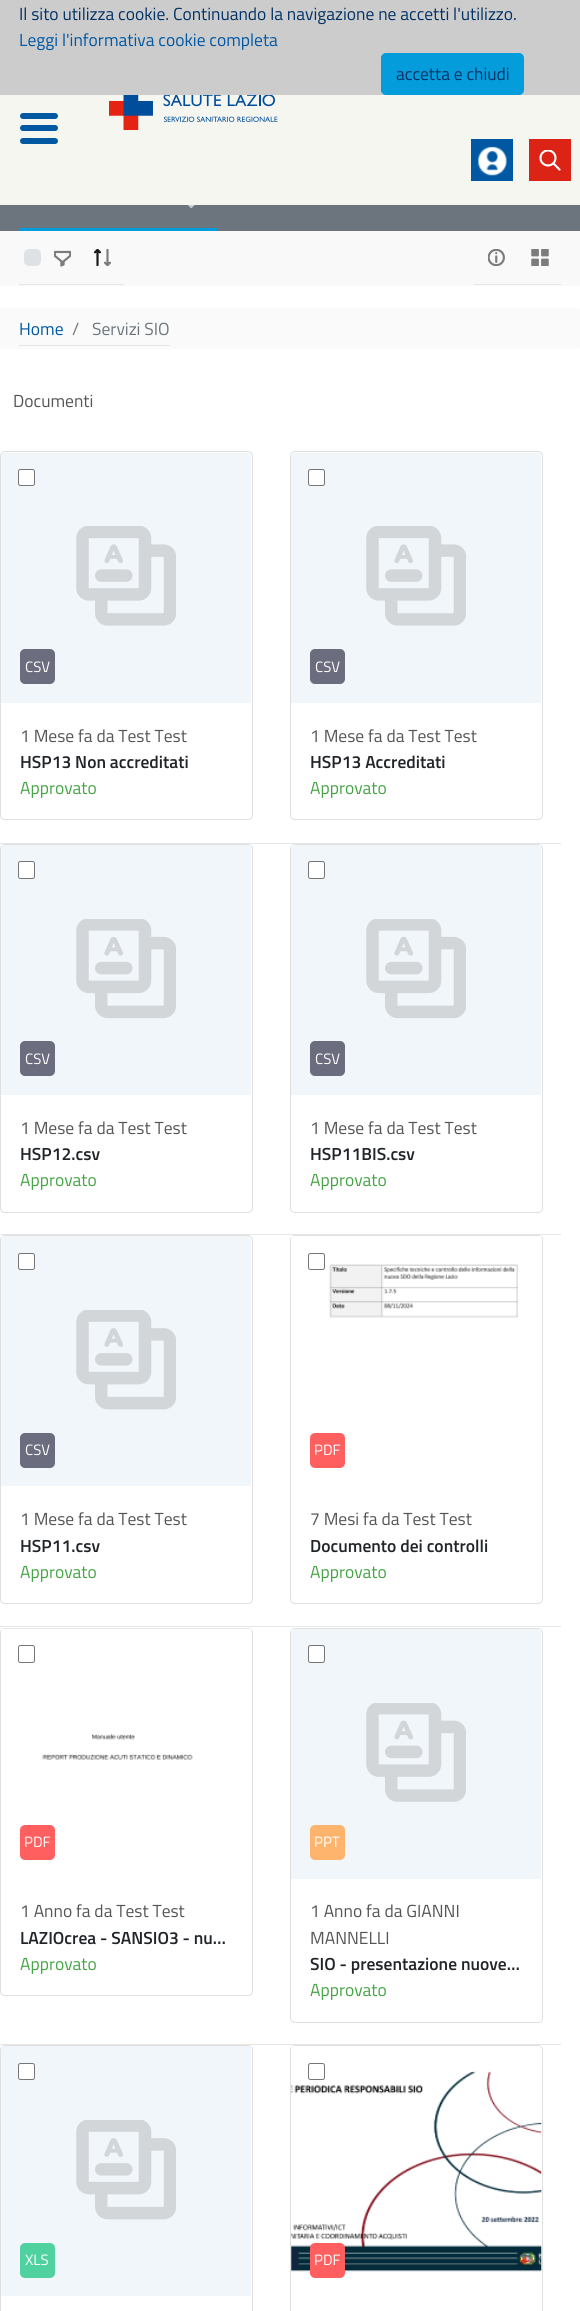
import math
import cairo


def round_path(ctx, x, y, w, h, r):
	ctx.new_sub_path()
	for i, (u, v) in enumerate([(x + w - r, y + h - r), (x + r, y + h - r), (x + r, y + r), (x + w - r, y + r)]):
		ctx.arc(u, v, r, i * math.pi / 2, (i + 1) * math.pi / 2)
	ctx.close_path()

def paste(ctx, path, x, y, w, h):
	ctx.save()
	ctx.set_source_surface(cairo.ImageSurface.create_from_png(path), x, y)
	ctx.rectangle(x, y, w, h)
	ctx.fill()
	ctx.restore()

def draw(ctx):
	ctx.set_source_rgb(1, 1, 1)
	ctx.paint()
	ctx.set_source_rgb(0.8, 0.8, 0.8)
	ctx.rectangle(0, 0, 580, 95)
	ctx.fill()
	ctx.select_font_face('Titillium Web')
	ctx.set_font_size(17.5)
	ctx.set_source_rgb(0.012, 0.2, 0.4)
	ctx.move_to(19, 20)
	ctx.show_text('Il sito utilizza cookie. Continuando la navigazione ne accetti l\'utilizzo.')
	ctx.set_source_rgb(0, 0.345, 0.639)
	ctx.move_to(19, 46)
	ctx.show_text('Leggi l\'informativa cookie completa')
	ctx.set_source_rgb(0.016, 0.612, 0.859)
	round_path(ctx, 381.5, 53.5, 142, 41, 4.5)
	ctx.fill_preserve()
	ctx.set_line_width(1)
	ctx.stroke()
	ctx.set_source_rgb(0.012, 0.2, 0.4)
	ctx.move_to(396, 80)
	ctx.show_text('accetta e chiudi')
	ctx.set_source_rgb(0.961, 0.961, 0.941)
	ctx.rectangle(0, 95, 580, 110)
	ctx.fill()
	ctx.set_source_rgb(0, 0.345, 0.639)
	round_path(ctx, 20, 113, 38, 6, 3)
	ctx.fill()
	round_path(ctx, 20, 125, 38, 6, 3)
	ctx.fill()
	round_path(ctx, 20, 138, 38, 6, 3)
	ctx.fill()
	paste(ctx, 'media/1.png', 109, 95, 169, 35)
	ctx.rectangle(471, 139, 42, 42)
	ctx.fill()
	paste(ctx, 'media/2.png', 477, 146, 30, 30)
	ctx.set_source_rgb(0.859, 0.137, 0.086)
	ctx.rectangle(529, 139, 42, 42)
	ctx.fill()
	paste(ctx, 'media/3.png', 539, 150, 22, 21)
	ctx.set_source_rgb(0.424, 0.459, 0.49)
	ctx.rectangle(0, 205, 580, 26)
	ctx.fill()
	paste(ctx, 'media/4.png', 188, 205, 7, 3)
	ctx.set_source_rgb(0.016, 0.612, 0.859)
	ctx.rectangle(19, 228, 199, 3)
	ctx.fill()
	ctx.set_source_rgb(0.973, 0.976, 0.98)
	ctx.rectangle(0, 231, 580, 55)
	ctx.fill()
	ctx.set_source_rgb(0.906, 0.902, 0.894)
	ctx.rectangle(19, 284, 26, 1)
	ctx.fill()
	ctx.set_source_rgb(0.871, 0.886, 0.902)
	round_path(ctx, 24, 249, 17, 17, 5)
	ctx.fill()
	ctx.set_source_rgb(0.906, 0.902, 0.894)
	ctx.rectangle(45, 284, 79, 1)
	ctx.fill()
	paste(ctx, 'media/5.png', 94, 249, 17, 17)
	paste(ctx, 'media/6.png', 54, 250, 17, 17)
	ctx.rectangle(474, 284, 87, 1)
	ctx.fill()
	paste(ctx, 'media/7.png', 488, 249, 17, 17)
	paste(ctx, 'media/8.png', 531, 249, 18, 17)
	ctx.set_source_rgb(0.98, 0.98, 0.98)
	round_path(ctx, 0, 308, 580, 41, 2.5)
	ctx.fill()
	ctx.set_source_rgb(0.906, 0.902, 0.894)
	ctx.rectangle(19, 345, 151, 1)
	ctx.fill()
	ctx.set_source_rgb(0, 0.345, 0.639)
	ctx.move_to(19, 335)
	ctx.show_text('Home')
	ctx.set_source_rgb(0.424, 0.459, 0.49)
	ctx.move_to(72, 335)
	ctx.show_text('/')
	ctx.move_to(92, 335)
	ctx.show_text('Servizi SIO')
	ctx.set_source_rgb(0.333, 0.333, 0.333)
	ctx.move_to(13, 407)
	ctx.show_text('Documenti')
	ctx.set_source_rgb(0.906, 0.902, 0.894)
	ctx.rectangle(0, 843, 561, 1)
	ctx.fill()
	round_path(ctx, 0.5, 451.5, 252, 368, 4.5)
	ctx.set_source_rgb(0.875, 0.875, 0.875)
	ctx.stroke()
	ctx.set_source_rgb(0.945, 0.961, 0.98)
	ctx.rectangle(1, 453, 250, 250)
	ctx.fill()
	ctx.set_source_rgb(1, 1, 1)
	round_path(ctx, 18.5, 469.5, 16, 16, 2)
	ctx.fill_preserve()
	ctx.set_source_rgb(0.463, 0.463, 0.463)
	ctx.stroke()
	paste(ctx, 'media/9.png', 76, 526, 100, 100)
	ctx.set_source_rgb(0.42, 0.424, 0.494)
	round_path(ctx, 20, 649, 35, 35, 5)
	ctx.fill()
	ctx.set_font_size(15)
	ctx.set_source_rgb(1, 1, 1)
	ctx.move_to(25, 672)
	ctx.show_text('CSV')
	ctx.set_font_size(17.5)
	ctx.set_source_rgb(0.333, 0.333, 0.333)
	ctx.move_to(20, 742)
	ctx.show_text('1 Mese fa da Test Test')
	ctx.select_font_face('Titillium Web SemiBold')
	ctx.set_source_rgb(0.129, 0.145, 0.161)
	ctx.move_to(20, 768)
	ctx.show_text('HSP13 Non accreditati')
	ctx.select_font_face('Titillium Web')
	ctx.set_source_rgb(0.275, 0.647, 0.275)
	ctx.move_to(20, 794)
	ctx.show_text('Approvato')
	round_path(ctx, 290.5, 451.5, 252, 368, 4.5)
	ctx.set_source_rgb(0.875, 0.875, 0.875)
	ctx.stroke()
	ctx.set_source_rgb(0.945, 0.961, 0.98)
	ctx.rectangle(291, 453, 250, 250)
	ctx.fill()
	ctx.set_source_rgb(1, 1, 1)
	round_path(ctx, 308.5, 469.5, 16, 16, 2)
	ctx.fill_preserve()
	ctx.set_source_rgb(0.463, 0.463, 0.463)
	ctx.stroke()
	paste(ctx, 'media/9.png', 366, 526, 100, 100)
	ctx.set_source_rgb(0.42, 0.424, 0.494)
	round_path(ctx, 310, 649, 35, 35, 5)
	ctx.fill()
	ctx.set_font_size(15)
	ctx.set_source_rgb(1, 1, 1)
	ctx.move_to(315, 672)
	ctx.show_text('CSV')
	ctx.set_font_size(17.5)
	ctx.set_source_rgb(0.333, 0.333, 0.333)
	ctx.move_to(310, 742)
	ctx.show_text('1 Mese fa da Test Test')
	ctx.select_font_face('Titillium Web SemiBold')
	ctx.set_source_rgb(0.129, 0.145, 0.161)
	ctx.move_to(310, 768)
	ctx.show_text('HSP13 Accreditati')
	ctx.select_font_face('Titillium Web')
	ctx.set_source_rgb(0.275, 0.647, 0.275)
	ctx.move_to(310, 794)
	ctx.show_text('Approvato')
	ctx.set_source_rgb(0.906, 0.902, 0.894)
	ctx.rectangle(0, 1234, 561, 1)
	ctx.fill()
	round_path(ctx, 0.5, 844.5, 252, 368, 4.5)
	ctx.set_source_rgb(0.875, 0.875, 0.875)
	ctx.stroke()
	ctx.set_source_rgb(0.945, 0.961, 0.98)
	ctx.rectangle(1, 845, 250, 250)
	ctx.fill()
	ctx.set_source_rgb(1, 1, 1)
	round_path(ctx, 18.5, 861.5, 16, 17, 2)
	ctx.fill_preserve()
	ctx.set_source_rgb(0.463, 0.463, 0.463)
	ctx.stroke()
	paste(ctx, 'media/10.png', 76, 919, 100, 100)
	ctx.set_source_rgb(0.42, 0.424, 0.494)
	round_path(ctx, 20, 1041, 35, 35, 5)
	ctx.fill()
	ctx.set_font_size(15)
	ctx.set_source_rgb(1, 1, 1)
	ctx.move_to(25, 1064)
	ctx.show_text('CSV')
	ctx.set_font_size(17.5)
	ctx.set_source_rgb(0.333, 0.333, 0.333)
	ctx.move_to(20, 1134)
	ctx.show_text('1 Mese fa da Test Test')
	ctx.select_font_face('Titillium Web SemiBold')
	ctx.set_source_rgb(0.129, 0.145, 0.161)
	ctx.move_to(20, 1160)
	ctx.show_text('HSP12.csv')
	ctx.select_font_face('Titillium Web')
	ctx.set_source_rgb(0.275, 0.647, 0.275)
	ctx.move_to(20, 1186)
	ctx.show_text('Approvato')
	round_path(ctx, 290.5, 844.5, 252, 368, 4.5)
	ctx.set_source_rgb(0.875, 0.875, 0.875)
	ctx.stroke()
	ctx.set_source_rgb(0.945, 0.961, 0.98)
	ctx.rectangle(291, 845, 250, 250)
	ctx.fill()
	ctx.set_source_rgb(1, 1, 1)
	round_path(ctx, 308.5, 861.5, 16, 17, 2)
	ctx.fill_preserve()
	ctx.set_source_rgb(0.463, 0.463, 0.463)
	ctx.stroke()
	paste(ctx, 'media/10.png', 366, 919, 100, 100)
	ctx.set_source_rgb(0.42, 0.424, 0.494)
	round_path(ctx, 310, 1041, 35, 35, 5)
	ctx.fill()
	ctx.set_font_size(15)
	ctx.set_source_rgb(1, 1, 1)
	ctx.move_to(315, 1064)
	ctx.show_text('CSV')
	ctx.set_font_size(17.5)
	ctx.set_source_rgb(0.333, 0.333, 0.333)
	ctx.move_to(310, 1134)
	ctx.show_text('1 Mese fa da Test Test')
	ctx.select_font_face('Titillium Web SemiBold')
	ctx.set_source_rgb(0.129, 0.145, 0.161)
	ctx.move_to(310, 1160)
	ctx.show_text('HSP11BIS.csv')
	ctx.select_font_face('Titillium Web')
	ctx.set_source_rgb(0.275, 0.647, 0.275)
	ctx.move_to(310, 1186)
	ctx.show_text('Approvato')
	ctx.set_source_rgb(0.906, 0.902, 0.894)
	ctx.rectangle(0, 1626, 561, 1)
	ctx.fill()
	round_path(ctx, 0.5, 1235.5, 252, 368, 4.5)
	ctx.set_source_rgb(0.875, 0.875, 0.875)
	ctx.stroke()
	ctx.set_source_rgb(0.945, 0.961, 0.98)
	ctx.rectangle(1, 1236, 250, 250)
	ctx.fill()
	ctx.set_source_rgb(1, 1, 1)
	round_path(ctx, 18.5, 1253.5, 16, 16, 2)
	ctx.fill_preserve()
	ctx.set_source_rgb(0.463, 0.463, 0.463)
	ctx.stroke()
	paste(ctx, 'media/11.png', 76, 1310, 100, 100)
	ctx.set_source_rgb(0.42, 0.424, 0.494)
	round_path(ctx, 20, 1433, 35, 35, 5)
	ctx.fill()
	ctx.set_font_size(15)
	ctx.set_source_rgb(1, 1, 1)
	ctx.move_to(25, 1455)
	ctx.show_text('CSV')
	ctx.set_font_size(17.5)
	ctx.set_source_rgb(0.333, 0.333, 0.333)
	ctx.move_to(20, 1525)
	ctx.show_text('1 Mese fa da Test Test')
	ctx.select_font_face('Titillium Web SemiBold')
	ctx.set_source_rgb(0.129, 0.145, 0.161)
	ctx.move_to(20, 1552)
	ctx.show_text('HSP11.csv')
	ctx.select_font_face('Titillium Web')
	ctx.set_source_rgb(0.275, 0.647, 0.275)
	ctx.move_to(20, 1578)
	ctx.show_text('Approvato')
	round_path(ctx, 290.5, 1235.5, 252, 368, 4.5)
	ctx.set_source_rgb(0.875, 0.875, 0.875)
	ctx.stroke()
	paste(ctx, 'media/12.png', 291, 1236, 251, 82)
	round_path(ctx, 308.5, 1253.5, 16, 16, 2)
	ctx.set_source_rgb(0.463, 0.463, 0.463)
	ctx.stroke()
	ctx.set_source_rgb(1, 0.373, 0.373)
	round_path(ctx, 310, 1433, 35, 35, 5)
	ctx.fill()
	ctx.set_font_size(15)
	ctx.set_source_rgb(1, 1, 1)
	ctx.move_to(314, 1455)
	ctx.show_text('PDF')
	ctx.set_font_size(17.5)
	ctx.set_source_rgb(0.333, 0.333, 0.333)
	ctx.move_to(310, 1525)
	ctx.show_text('7 Mesi fa da Test Test')
	ctx.select_font_face('Titillium Web SemiBold')
	ctx.set_source_rgb(0.129, 0.145, 0.161)
	ctx.move_to(310, 1552)
	ctx.show_text('Documento dei controlli')
	ctx.select_font_face('Titillium Web')
	ctx.set_source_rgb(0.275, 0.647, 0.275)
	ctx.move_to(310, 1578)
	ctx.show_text('Approvato')
	ctx.set_source_rgb(0.906, 0.902, 0.894)
	ctx.rectangle(0, 2044, 561, 1)
	ctx.fill()
	round_path(ctx, 0.5, 1628.5, 252, 367, 4.5)
	ctx.set_source_rgb(0.875, 0.875, 0.875)
	ctx.stroke()
	paste(ctx, 'media/13.png', 1, 1628, 251, 132)
	round_path(ctx, 18.5, 1645.5, 16, 17, 2)
	ctx.set_source_rgb(0.463, 0.463, 0.463)
	ctx.stroke()
	ctx.set_source_rgb(1, 0.373, 0.373)
	round_path(ctx, 20, 1825, 35, 35, 5)
	ctx.fill()
	ctx.set_font_size(15)
	ctx.set_source_rgb(1, 1, 1)
	ctx.move_to(24, 1847)
	ctx.show_text('PDF')
	ctx.set_font_size(17.5)
	ctx.set_source_rgb(0.333, 0.333, 0.333)
	ctx.move_to(20, 1917)
	ctx.show_text('1 Anno fa da Test Test')
	ctx.select_font_face('Titillium Web SemiBold')
	ctx.set_source_rgb(0.129, 0.145, 0.161)
	ctx.move_to(20, 1944)
	ctx.show_text('LAZIOcrea - SANSIO3 - nu…')
	ctx.select_font_face('Titillium Web')
	ctx.set_source_rgb(0.275, 0.647, 0.275)
	ctx.move_to(20, 1970)
	ctx.show_text('Approvato')
	round_path(ctx, 290.5, 1628.5, 252, 394, 4.5)
	ctx.set_source_rgb(0.875, 0.875, 0.875)
	ctx.stroke()
	ctx.set_source_rgb(0.945, 0.961, 0.98)
	ctx.rectangle(291, 1629, 250, 250)
	ctx.fill()
	ctx.set_source_rgb(1, 1, 1)
	round_path(ctx, 308.5, 1645.5, 16, 17, 2)
	ctx.fill_preserve()
	ctx.set_source_rgb(0.463, 0.463, 0.463)
	ctx.stroke()
	paste(ctx, 'media/14.png', 366, 1703, 100, 99)
	ctx.set_source_rgb(1, 0.706, 0.431)
	round_path(ctx, 310, 1825, 35, 35, 5)
	ctx.fill()
	ctx.set_font_size(15)
	ctx.set_source_rgb(1, 1, 1)
	ctx.move_to(314, 1847)
	ctx.show_text('PPT')
	ctx.set_font_size(17.5)
	ctx.set_source_rgb(0.333, 0.333, 0.333)
	ctx.move_to(310, 1917)
	ctx.show_text('1 Anno fa da GIANNI')
	ctx.move_to(310, 1944)
	ctx.show_text('MANNELLI')
	ctx.select_font_face('Titillium Web SemiBold')
	ctx.set_source_rgb(0.129, 0.145, 0.161)
	ctx.move_to(310, 1970)
	ctx.show_text('SIO - presentazione nuove…')
	ctx.select_font_face('Titillium Web')
	ctx.set_source_rgb(0.275, 0.647, 0.275)
	ctx.move_to(310, 1996)
	ctx.show_text('Approvato')
	round_path(ctx, 0.5, 2045.5, 252, 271, 4.5)
	ctx.set_source_rgb(0.875, 0.875, 0.875)
	ctx.stroke()
	ctx.set_source_rgb(0.945, 0.961, 0.98)
	ctx.rectangle(1, 2046, 250, 250)
	ctx.fill()
	ctx.set_source_rgb(1, 1, 1)
	round_path(ctx, 18.5, 2063.5, 16, 16, 2)
	ctx.fill_preserve()
	ctx.set_source_rgb(0.463, 0.463, 0.463)
	ctx.stroke()
	paste(ctx, 'media/11.png', 76, 2120, 100, 100)
	ctx.set_source_rgb(0.314, 0.824, 0.627)
	round_path(ctx, 20, 2243, 35, 35, 5)
	ctx.fill()
	ctx.set_font_size(15)
	ctx.set_source_rgb(1, 1, 1)
	ctx.move_to(25, 2265)
	ctx.show_text('XLS')
	round_path(ctx, 290.5, 2045.5, 252, 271, 4.5)
	ctx.set_source_rgb(0.875, 0.875, 0.875)
	ctx.stroke()
	paste(ctx, 'media/15.png', 291, 2046, 251, 226)
	round_path(ctx, 308.5, 2063.5, 16, 16, 2)
	ctx.set_source_rgb(0.463, 0.463, 0.463)
	ctx.stroke()
	ctx.set_source_rgb(1, 0.373, 0.373)
	round_path(ctx, 310, 2243, 35, 35, 5)
	ctx.fill()
	ctx.set_source_rgb(1, 1, 1)
	ctx.move_to(314, 2265)
	ctx.show_text('PDF')


surface = cairo.ImageSurface(cairo.FORMAT_RGB24, 580, 2311)
ctx = cairo.Context(surface)
options = cairo.FontOptions()
options.set_hint_metrics(cairo.HINT_METRICS_OFF)
options.set_hint_style(cairo.HINT_STYLE_NONE)
ctx.set_font_options(options)
ctx.set_miter_limit(4)
draw(ctx)
surface.write_to_png('image.png')
